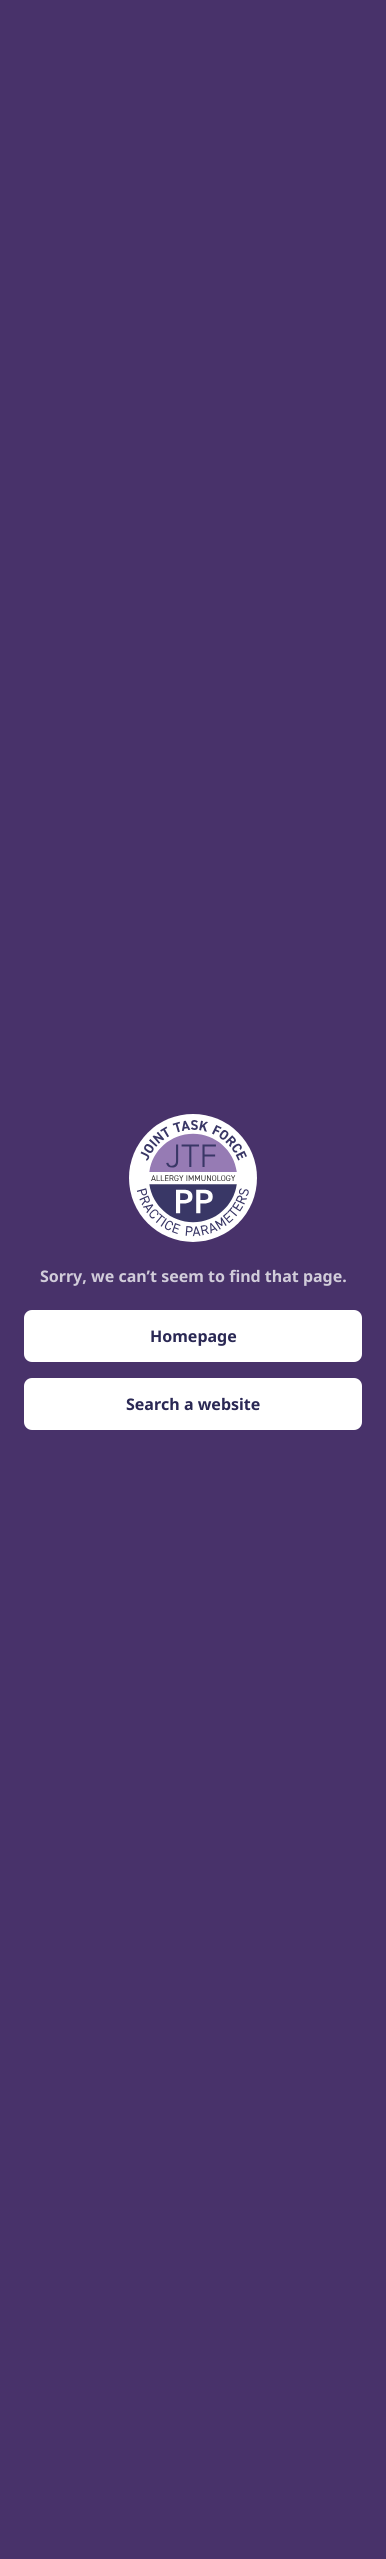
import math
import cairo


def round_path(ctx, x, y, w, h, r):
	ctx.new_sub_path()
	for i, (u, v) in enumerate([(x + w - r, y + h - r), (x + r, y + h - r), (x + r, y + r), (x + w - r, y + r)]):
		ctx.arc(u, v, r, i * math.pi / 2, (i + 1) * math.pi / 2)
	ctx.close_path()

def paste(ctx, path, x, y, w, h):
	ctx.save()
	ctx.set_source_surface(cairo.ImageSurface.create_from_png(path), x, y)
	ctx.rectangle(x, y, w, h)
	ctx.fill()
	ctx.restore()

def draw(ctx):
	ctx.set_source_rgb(0.282, 0.196, 0.416)
	ctx.paint()
	paste(ctx, 'media/1.png', 129, 1114, 128, 128)
	ctx.select_font_face('Noto Sans', cairo.FONT_SLANT_NORMAL, cairo.FONT_WEIGHT_BOLD)
	ctx.set_font_size(16)
	ctx.set_source_rgb(0.82, 0.8, 0.855)
	ctx.move_to(40, 1282)
	ctx.show_text('Sorry, we can’t seem to find that page.')
	ctx.set_source_rgb(1, 1, 1)
	round_path(ctx, 24, 1310, 338, 52, 8)
	ctx.fill()
	ctx.set_source_rgb(0.165, 0.157, 0.329)
	ctx.move_to(150, 1342)
	ctx.show_text('Homepage')
	ctx.set_source_rgb(1, 1, 1)
	round_path(ctx, 24, 1378, 338, 52, 8)
	ctx.fill()
	ctx.set_source_rgb(0.165, 0.157, 0.329)
	ctx.move_to(126, 1410)
	ctx.show_text('Search a website')


surface = cairo.ImageSurface(cairo.FORMAT_RGB24, 386, 2559)
ctx = cairo.Context(surface)
options = cairo.FontOptions()
options.set_hint_metrics(cairo.HINT_METRICS_OFF)
options.set_hint_style(cairo.HINT_STYLE_NONE)
ctx.set_font_options(options)
ctx.set_miter_limit(4)
draw(ctx)
surface.write_to_png('image.png')
